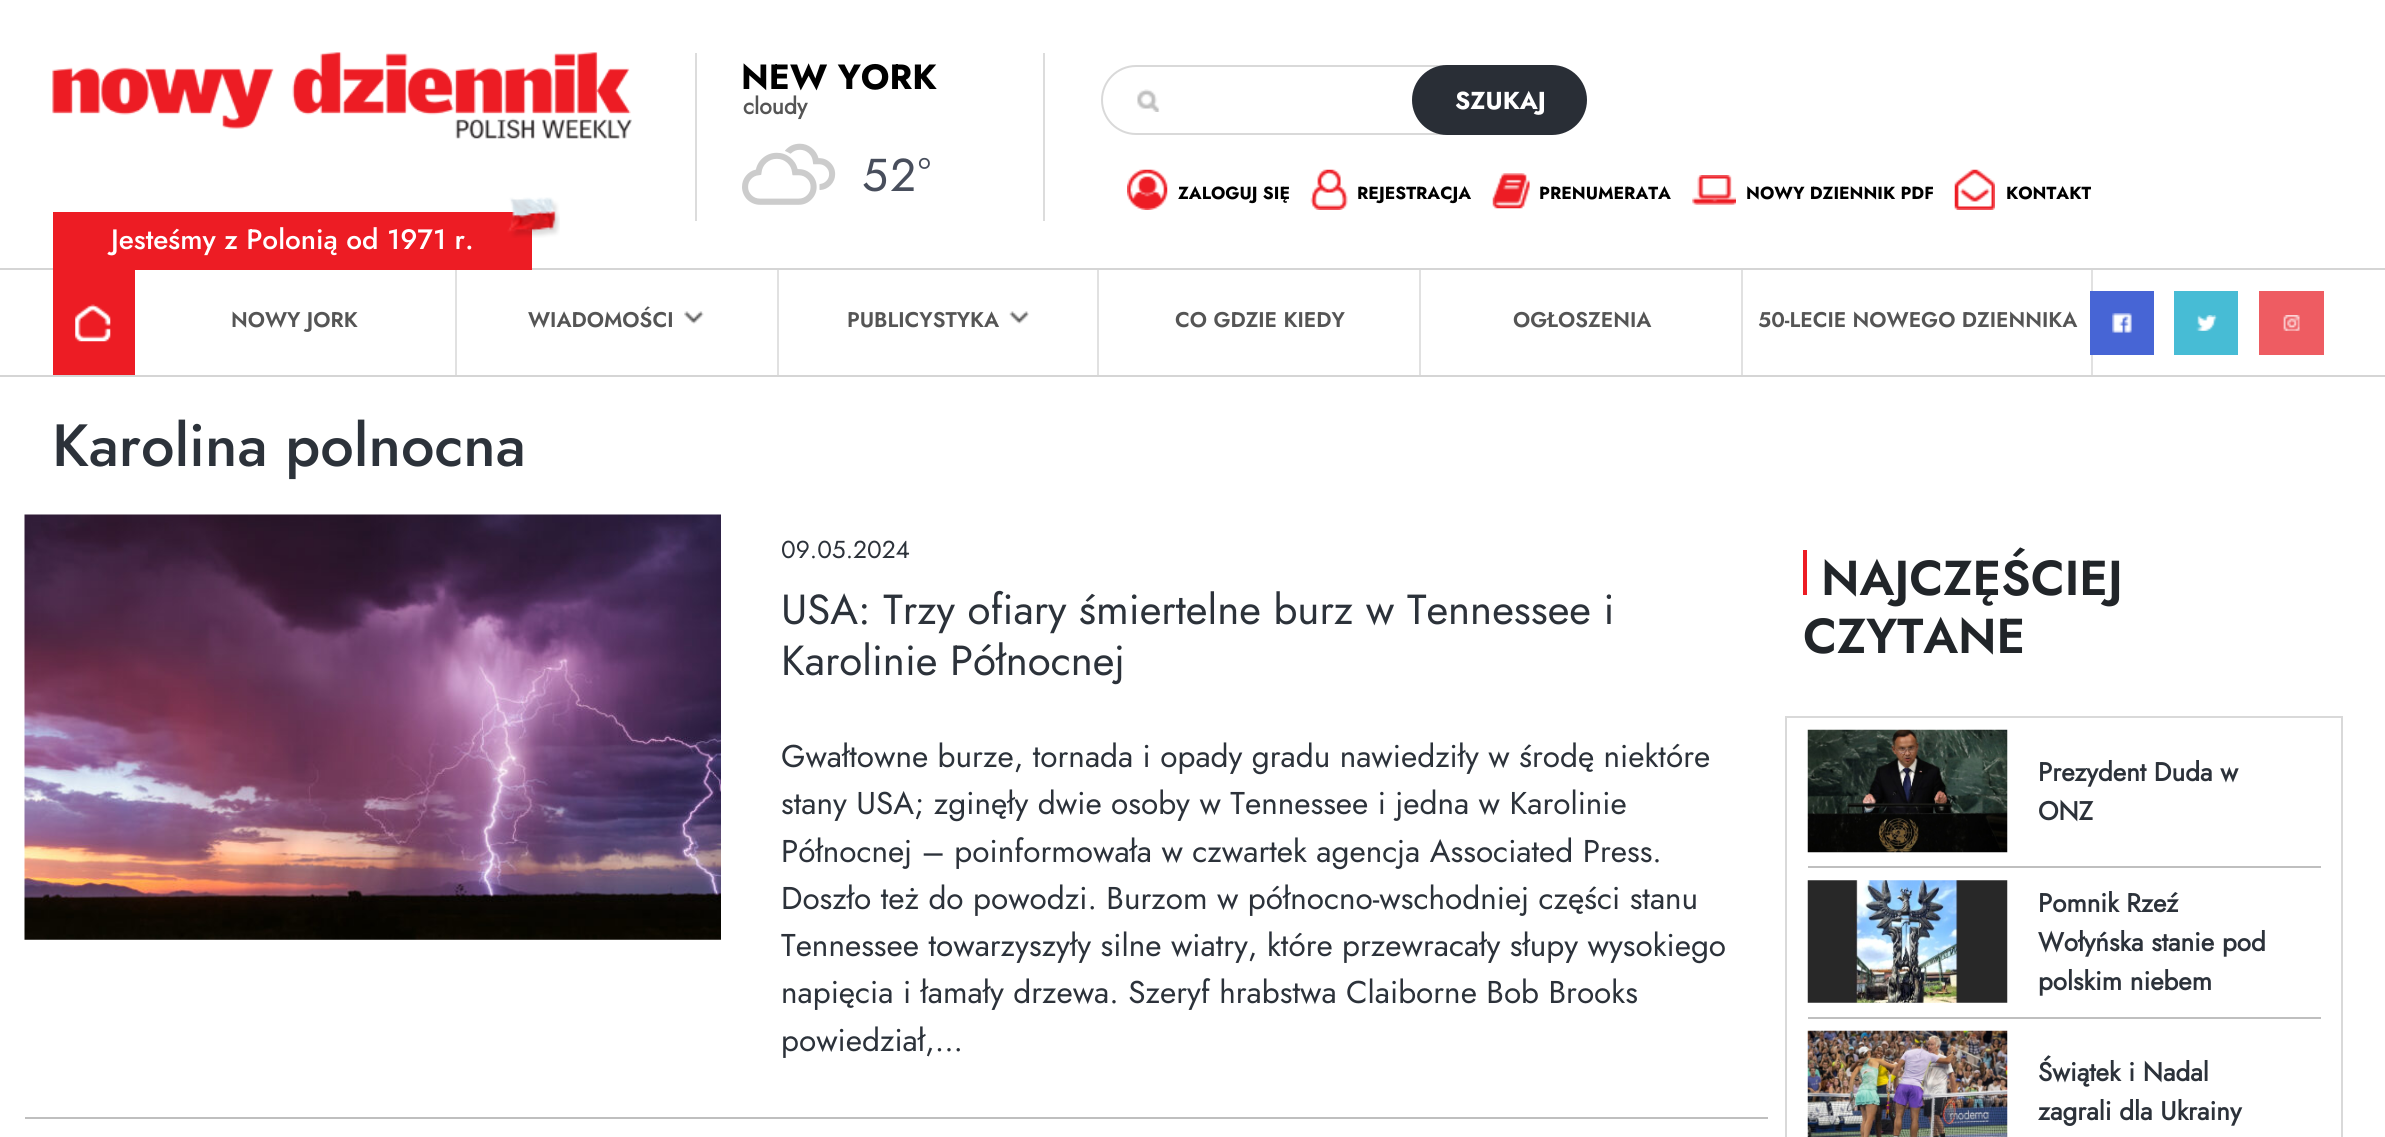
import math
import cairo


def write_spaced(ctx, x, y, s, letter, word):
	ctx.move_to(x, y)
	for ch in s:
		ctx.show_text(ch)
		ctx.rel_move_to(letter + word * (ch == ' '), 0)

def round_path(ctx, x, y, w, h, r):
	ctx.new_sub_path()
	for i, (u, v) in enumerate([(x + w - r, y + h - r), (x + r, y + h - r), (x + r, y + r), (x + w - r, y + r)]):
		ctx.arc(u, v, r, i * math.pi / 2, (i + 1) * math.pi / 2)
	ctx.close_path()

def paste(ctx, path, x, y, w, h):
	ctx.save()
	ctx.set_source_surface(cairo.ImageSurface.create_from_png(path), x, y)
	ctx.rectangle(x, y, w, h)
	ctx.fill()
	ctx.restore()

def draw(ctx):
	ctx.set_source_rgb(1, 1, 1)
	ctx.paint()
	ctx.set_source_rgb(0.863, 0.863, 0.863)
	ctx.rectangle(695, 53, 2, 168)
	ctx.fill()
	paste(ctx, 'media/1.png', 52, 52, 580, 87)
	ctx.rectangle(1043, 53, 2, 168)
	ctx.fill()
	ctx.select_font_face('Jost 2', cairo.FONT_SLANT_NORMAL, cairo.FONT_WEIGHT_BOLD)
	ctx.set_font_size(35)
	ctx.set_source_rgb(0, 0, 0)
	ctx.move_to(741, 89)
	ctx.show_text('NEW YORK')
	ctx.select_font_face('Jost', cairo.FONT_SLANT_NORMAL, cairo.FONT_WEIGHT_BOLD)
	ctx.set_font_size(23)
	ctx.set_source_rgb(0.333, 0.333, 0.333)
	ctx.move_to(743, 114)
	ctx.show_text('cloudy')
	paste(ctx, 'media/2.png', 742, 143, 94, 62)
	ctx.select_font_face('Jost')
	ctx.set_font_size(46)
	ctx.set_source_rgb(0.282, 0.306, 0.361)
	write_spaced(ctx, 862, 191, '52°', 2, 0)
	paste(ctx, 'media/3.png', 1137, 89, 23, 23)
	round_path(ctx, 1102, 66, 428, 68, 34)
	ctx.set_source_rgb(0.851, 0.851, 0.851)
	ctx.stroke()
	ctx.set_source_rgb(0.161, 0.18, 0.212)
	round_path(ctx, 1413, 66, 173, 68, 34)
	ctx.fill_preserve()
	ctx.stroke()
	ctx.select_font_face('Jost 2', cairo.FONT_SLANT_NORMAL, cairo.FONT_WEIGHT_BOLD)
	ctx.set_font_size(24.5)
	ctx.set_source_rgb(1, 1, 1)
	ctx.move_to(1455, 109)
	ctx.show_text('SZUKAJ')
	paste(ctx, 'media/4.png', 1127, 169, 41, 41)
	ctx.set_font_size(17.5)
	ctx.set_source_rgb(0, 0, 0)
	ctx.move_to(1178, 199)
	ctx.show_text('ZALOGUJ SIĘ')
	paste(ctx, 'media/5.png', 1310, 169, 38, 41)
	ctx.move_to(1357, 199)
	ctx.show_text('REJESTRACJA')
	paste(ctx, 'media/6.png', 1492, 173, 38, 36)
	ctx.move_to(1539, 199)
	ctx.show_text('PRENUMERATA')
	paste(ctx, 'media/7.png', 1692, 175, 44, 30)
	ctx.move_to(1746, 199)
	ctx.show_text('NOWY DZIENNIK PDF')
	paste(ctx, 'media/8.png', 1954, 169, 41, 41)
	ctx.move_to(2006, 199)
	ctx.show_text('KONTAKT')
	ctx.set_source_rgb(0.835, 0.835, 0.835)
	ctx.rectangle(0, 268, 2385, 2)
	ctx.fill()
	ctx.set_source_rgb(0.929, 0.11, 0.141)
	ctx.rectangle(53, 212, 479, 58)
	ctx.fill()
	paste(ctx, 'media/9.png', 507, 197, 53, 41)
	ctx.select_font_face('Jost Medium')
	ctx.set_font_size(28)
	ctx.set_source_rgb(1, 1, 1)
	ctx.move_to(111, 249)
	ctx.show_text('Jesteśmy z Polonią od 1971 r.')
	ctx.set_source_rgb(0.835, 0.835, 0.835)
	ctx.rectangle(0, 375, 2385, 2)
	ctx.fill()
	ctx.set_source_rgb(0.929, 0.11, 0.141)
	ctx.rectangle(53, 270, 82, 105)
	ctx.fill()
	paste(ctx, 'media/10.png', 75, 304, 36, 38)
	ctx.set_source_rgb(0.882, 0.882, 0.882)
	ctx.rectangle(455, 270, 2, 105)
	ctx.fill()
	ctx.select_font_face('Jost SemiBold')
	ctx.set_font_size(21.25)
	ctx.set_source_rgb(0.333, 0.333, 0.333)
	ctx.move_to(231, 327)
	ctx.show_text('NOWY JORK')
	ctx.set_source_rgb(0.882, 0.882, 0.882)
	ctx.rectangle(777, 270, 2, 105)
	ctx.fill()
	ctx.set_source_rgb(0.333, 0.333, 0.333)
	ctx.move_to(528, 327)
	ctx.show_text('WIADOMOŚCI')
	paste(ctx, 'media/11.png', 684, 311, 20, 13)
	ctx.set_source_rgb(0.882, 0.882, 0.882)
	ctx.rectangle(1097, 270, 2, 105)
	ctx.fill()
	ctx.set_source_rgb(0.333, 0.333, 0.333)
	ctx.move_to(847, 327)
	ctx.show_text('PUBLICYSTYKA')
	paste(ctx, 'media/12.png', 1009, 311, 20, 13)
	ctx.set_source_rgb(0.882, 0.882, 0.882)
	ctx.rectangle(1419, 270, 2, 105)
	ctx.fill()
	ctx.set_source_rgb(0.333, 0.333, 0.333)
	ctx.move_to(1175, 327)
	ctx.show_text('CO GDZIE KIEDY')
	ctx.set_source_rgb(0.882, 0.882, 0.882)
	ctx.rectangle(1741, 270, 2, 105)
	ctx.fill()
	ctx.set_source_rgb(0.333, 0.333, 0.333)
	ctx.move_to(1513, 327)
	ctx.show_text('OGŁOSZENIA')
	ctx.set_source_rgb(0.882, 0.882, 0.882)
	ctx.rectangle(2091, 270, 2, 105)
	ctx.fill()
	ctx.set_source_rgb(0.333, 0.333, 0.333)
	ctx.move_to(1758, 327)
	ctx.show_text('50-LECIE NOWEGO DZIENNIKA')
	ctx.set_source_rgb(0.278, 0.396, 0.835)
	ctx.rectangle(2090, 291, 64, 64)
	ctx.fill()
	paste(ctx, 'media/13.png', 2112, 313, 20, 20)
	ctx.set_source_rgb(0.278, 0.737, 0.835)
	ctx.rectangle(2174, 291, 64, 64)
	ctx.fill()
	paste(ctx, 'media/14.png', 2196, 315, 22, 16)
	ctx.set_source_rgb(0.933, 0.361, 0.384)
	ctx.rectangle(2259, 291, 65, 64)
	ctx.fill()
	paste(ctx, 'media/15.png', 2283, 315, 17, 16)
	ctx.select_font_face('Jost Medium')
	ctx.set_font_size(59.5)
	ctx.set_source_rgb(0.173, 0.196, 0.227)
	ctx.move_to(52, 466)
	ctx.show_text('Karolina polnocna')
	ctx.set_source_rgb(0.749, 0.749, 0.749)
	ctx.rectangle(25, 1117, 1743, 2)
	ctx.fill()
	paste(ctx, 'media/16.png', 24, 514, 697, 426)
	ctx.select_font_face('Jost')
	ctx.set_font_size(24.5)
	ctx.set_source_rgb(0.173, 0.196, 0.227)
	ctx.move_to(781, 558)
	ctx.show_text('09.05.2024')
	ctx.set_font_size(42)
	ctx.move_to(781, 624)
	ctx.show_text('USA: Trzy ofiary śmiertelne burz w Tennessee i')
	ctx.move_to(781, 675)
	ctx.show_text('Karolinie Północnej')
	ctx.set_font_size(31.5)
	for x, y, s in [
		(781, 767, 'Gwałtowne burze, tornada i opady gradu nawiedziły w środę niektóre'),
		(781, 814, 'stany USA; zginęły dwie osoby w Tennessee i jedna w Karolinie'),
		(781, 862, 'Północnej – poinformowała w czwartek agencja Associated Press.'),
		(781, 909, 'Doszło też do powodzi. Burzom w północno-wschodniej części stanu'),
		(781, 956, 'Tennessee towarzyszyły silne wiatry, które przewracały słupy wysokiego'),
		(781, 1003, 'napięcia i łamały drzewa. Szeryf hrabstwa Claiborne Bob Brooks'),
		(781, 1051, 'powiedział,...'),
	]:
		ctx.move_to(x, y)
		ctx.show_text(s)
	ctx.set_source_rgb(0.929, 0.11, 0.141)
	ctx.rectangle(1803, 550, 4, 45)
	ctx.fill()
	ctx.select_font_face('Jost SemiBold')
	ctx.set_font_size(49)
	ctx.set_source_rgb(0.129, 0.145, 0.161)
	ctx.move_to(1821, 595)
	ctx.show_text('NAJCZĘŚCIEJ')
	ctx.move_to(1803, 653)
	ctx.show_text('CZYTANE')
	ctx.rectangle(1786, 717, 556, 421)
	ctx.set_source_rgb(0.851, 0.851, 0.851)
	ctx.stroke()
	ctx.set_source_rgb(0.749, 0.749, 0.749)
	ctx.rectangle(1808, 866, 513, 2)
	ctx.fill()
	paste(ctx, 'media/17.png', 1807, 729, 201, 124)
	ctx.select_font_face('Jost', cairo.FONT_SLANT_NORMAL, cairo.FONT_WEIGHT_BOLD)
	ctx.set_font_size(26)
	ctx.set_source_rgb(0.173, 0.196, 0.227)
	ctx.move_to(2038, 781)
	ctx.show_text('Prezydent Duda w')
	ctx.move_to(2038, 820)
	ctx.show_text('ONZ')
	ctx.set_source_rgb(0.749, 0.749, 0.749)
	ctx.rectangle(1808, 1017, 513, 2)
	ctx.fill()
	paste(ctx, 'media/18.png', 1807, 880, 201, 123)
	ctx.set_source_rgb(0.173, 0.196, 0.227)
	for x, y, s in [
		(2038, 912, 'Pomnik Rzeź'),
		(2038, 951, 'Wołyńska stanie pod'),
		(2038, 990, 'polskim niebem'),
	]:
		ctx.move_to(x, y)
		ctx.show_text(s)
	paste(ctx, 'media/19.png', 1807, 1030, 201, 107)
	ctx.move_to(2038, 1081)
	ctx.show_text('Świątek i Nadal')
	ctx.move_to(2038, 1120)
	ctx.show_text('zagrali dla Ukrainy')


surface = cairo.ImageSurface(cairo.FORMAT_RGB24, 2385, 1137)
ctx = cairo.Context(surface)
options = cairo.FontOptions()
options.set_hint_metrics(cairo.HINT_METRICS_OFF)
options.set_hint_style(cairo.HINT_STYLE_NONE)
ctx.set_font_options(options)
ctx.set_miter_limit(4)
draw(ctx)
surface.write_to_png('image.png')
